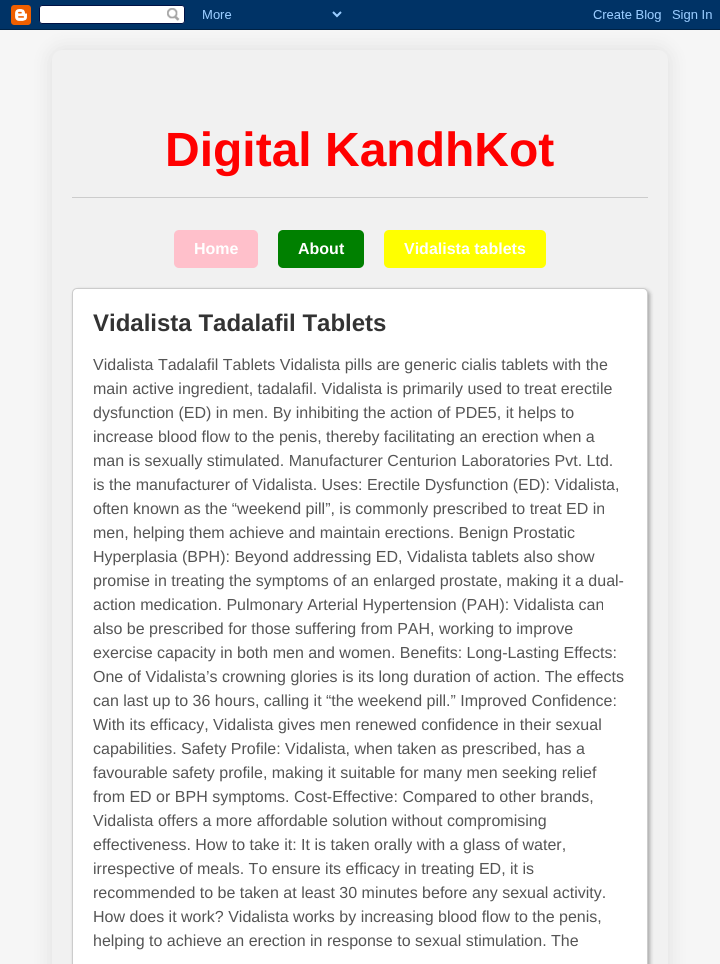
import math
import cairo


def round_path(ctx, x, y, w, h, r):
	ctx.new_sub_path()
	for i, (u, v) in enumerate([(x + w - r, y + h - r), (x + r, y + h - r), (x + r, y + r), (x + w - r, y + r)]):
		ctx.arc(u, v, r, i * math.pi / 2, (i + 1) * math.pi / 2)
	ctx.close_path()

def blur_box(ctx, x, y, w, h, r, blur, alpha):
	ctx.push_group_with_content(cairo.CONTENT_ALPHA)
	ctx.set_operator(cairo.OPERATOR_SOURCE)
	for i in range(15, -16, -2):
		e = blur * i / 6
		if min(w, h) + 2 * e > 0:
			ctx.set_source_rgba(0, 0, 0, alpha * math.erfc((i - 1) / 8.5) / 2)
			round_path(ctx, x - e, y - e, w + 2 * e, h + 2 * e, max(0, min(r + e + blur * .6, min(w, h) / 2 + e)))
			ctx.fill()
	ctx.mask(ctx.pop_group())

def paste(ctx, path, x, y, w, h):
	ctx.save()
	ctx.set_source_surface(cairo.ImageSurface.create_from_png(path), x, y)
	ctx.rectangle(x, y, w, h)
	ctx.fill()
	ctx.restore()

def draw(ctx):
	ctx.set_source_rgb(0.961, 0.961, 0.961)
	ctx.paint()
	ctx.set_source_rgb(0, 0, 0)
	blur_box(ctx, 52, 50, 616, 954, 10, 10, 0.1)
	paste(ctx, 'media/1.png', 0, 0, 720, 30)
	ctx.set_source_rgb(0.945, 0.945, 0.945)
	round_path(ctx, 52, 50, 616, 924, 10)
	ctx.fill()
	ctx.set_source_rgb(0.8, 0.8, 0.8)
	ctx.rectangle(72, 197, 576, 1)
	ctx.fill()
	ctx.select_font_face('Liberation Sans', cairo.FONT_SLANT_NORMAL, cairo.FONT_WEIGHT_BOLD)
	ctx.set_font_size(48)
	ctx.set_source_rgb(1, 0, 0)
	ctx.move_to(165, 166)
	ctx.show_text('Digital KandhKot')
	ctx.set_source_rgb(1, 0.753, 0.796)
	round_path(ctx, 174, 230, 84, 38, 5)
	ctx.fill()
	ctx.set_font_size(16)
	ctx.set_source_rgb(1, 1, 1)
	ctx.move_to(194, 254)
	ctx.show_text('Home')
	ctx.set_source_rgb(0, 0.502, 0)
	round_path(ctx, 278, 230, 86, 38, 5)
	ctx.fill()
	ctx.set_source_rgb(1, 1, 1)
	ctx.move_to(298, 254)
	ctx.show_text('About')
	ctx.set_source_rgb(1, 1, 0)
	round_path(ctx, 384, 230, 162, 38, 5)
	ctx.fill()
	ctx.set_source_rgb(1, 1, 1)
	ctx.move_to(404, 254)
	ctx.show_text('Vidalista tablets')
	ctx.set_source_rgb(0, 0, 0)
	blur_box(ctx, 74, 290, 576, 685, 5, 2, 0.3)
	ctx.set_source_rgb(1, 1, 1)
	round_path(ctx, 72.5, 288.5, 575, 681, 4.5)
	ctx.fill_preserve()
	ctx.set_source_rgb(0.8, 0.8, 0.8)
	ctx.set_line_width(1)
	ctx.stroke()
	ctx.set_font_size(24)
	ctx.set_source_rgb(0.2, 0.2, 0.2)
	ctx.move_to(93, 331)
	ctx.show_text('Vidalista Tadalafil Tablets')
	ctx.select_font_face('Liberation Sans')
	ctx.set_font_size(16)
	ctx.set_source_rgb(0.333, 0.333, 0.333)
	for x, y, s in [
		(93, 370, 'Vidalista Tadalafil Tablets Vidalista pills are generic cialis tablets with the'),
		(93, 394, 'main active ingredient, tadalafil. Vidalista is primarily used to treat erectile'),
		(93, 418, 'dysfunction (ED) in men. By inhibiting the action of PDE5, it helps to'),
		(93, 442, 'increase blood flow to the penis, thereby facilitating an erection when a'),
		(93, 466, 'man is sexually stimulated. Manufacturer Centurion Laboratories Pvt. Ltd.'),
		(93, 490, 'is the manufacturer of Vidalista. Uses: Erectile Dysfunction (ED): Vidalista,'),
		(93, 514, 'often known as the “weekend pill”, is commonly prescribed to treat ED in'),
		(93, 538, 'men, helping them achieve and maintain erections. Benign Prostatic'),
		(93, 562, 'Hyperplasia (BPH): Beyond addressing ED, Vidalista tablets also show'),
		(93, 586, 'promise in treating the symptoms of an enlarged prostate, making it a dual-'),
		(93, 610, 'action medication. Pulmonary Arterial Hypertension (PAH): Vidalista can'),
		(93, 634, 'also be prescribed for those suffering from PAH, working to improve'),
		(93, 658, 'exercise capacity in both men and women. Benefits: Long-Lasting Effects:'),
		(93, 682, 'One of Vidalista’s crowning glories is its long duration of action. The effects'),
		(93, 706, 'can last up to 36 hours, calling it “the weekend pill.” Improved Confidence:'),
		(93, 730, 'With its efficacy, Vidalista gives men renewed confidence in their sexual'),
		(93, 754, 'capabilities. Safety Profile: Vidalista, when taken as prescribed, has a'),
		(93, 778, 'favourable safety profile, making it suitable for many men seeking relief'),
		(93, 802, 'from ED or BPH symptoms. Cost-Effective: Compared to other brands,'),
		(93, 826, 'Vidalista offers a more affordable solution without compromising'),
		(93, 850, 'effectiveness. How to take it: It is taken orally with a glass of water,'),
		(93, 874, 'irrespective of meals. To ensure its efficacy in treating ED, it is'),
		(93, 898, 'recommended to be taken at least 30 minutes before any sexual activity.'),
		(93, 922, 'How does it work? Vidalista works by increasing blood flow to the penis,'),
		(93, 946, 'helping to achieve an erection in response to sexual stimulation. The'),
	]:
		ctx.move_to(x, y)
		ctx.show_text(s)


surface = cairo.ImageSurface(cairo.FORMAT_RGB24, 720, 964)
ctx = cairo.Context(surface)
options = cairo.FontOptions()
options.set_hint_metrics(cairo.HINT_METRICS_OFF)
options.set_hint_style(cairo.HINT_STYLE_NONE)
ctx.set_font_options(options)
ctx.set_miter_limit(4)
draw(ctx)
surface.write_to_png('image.png')
